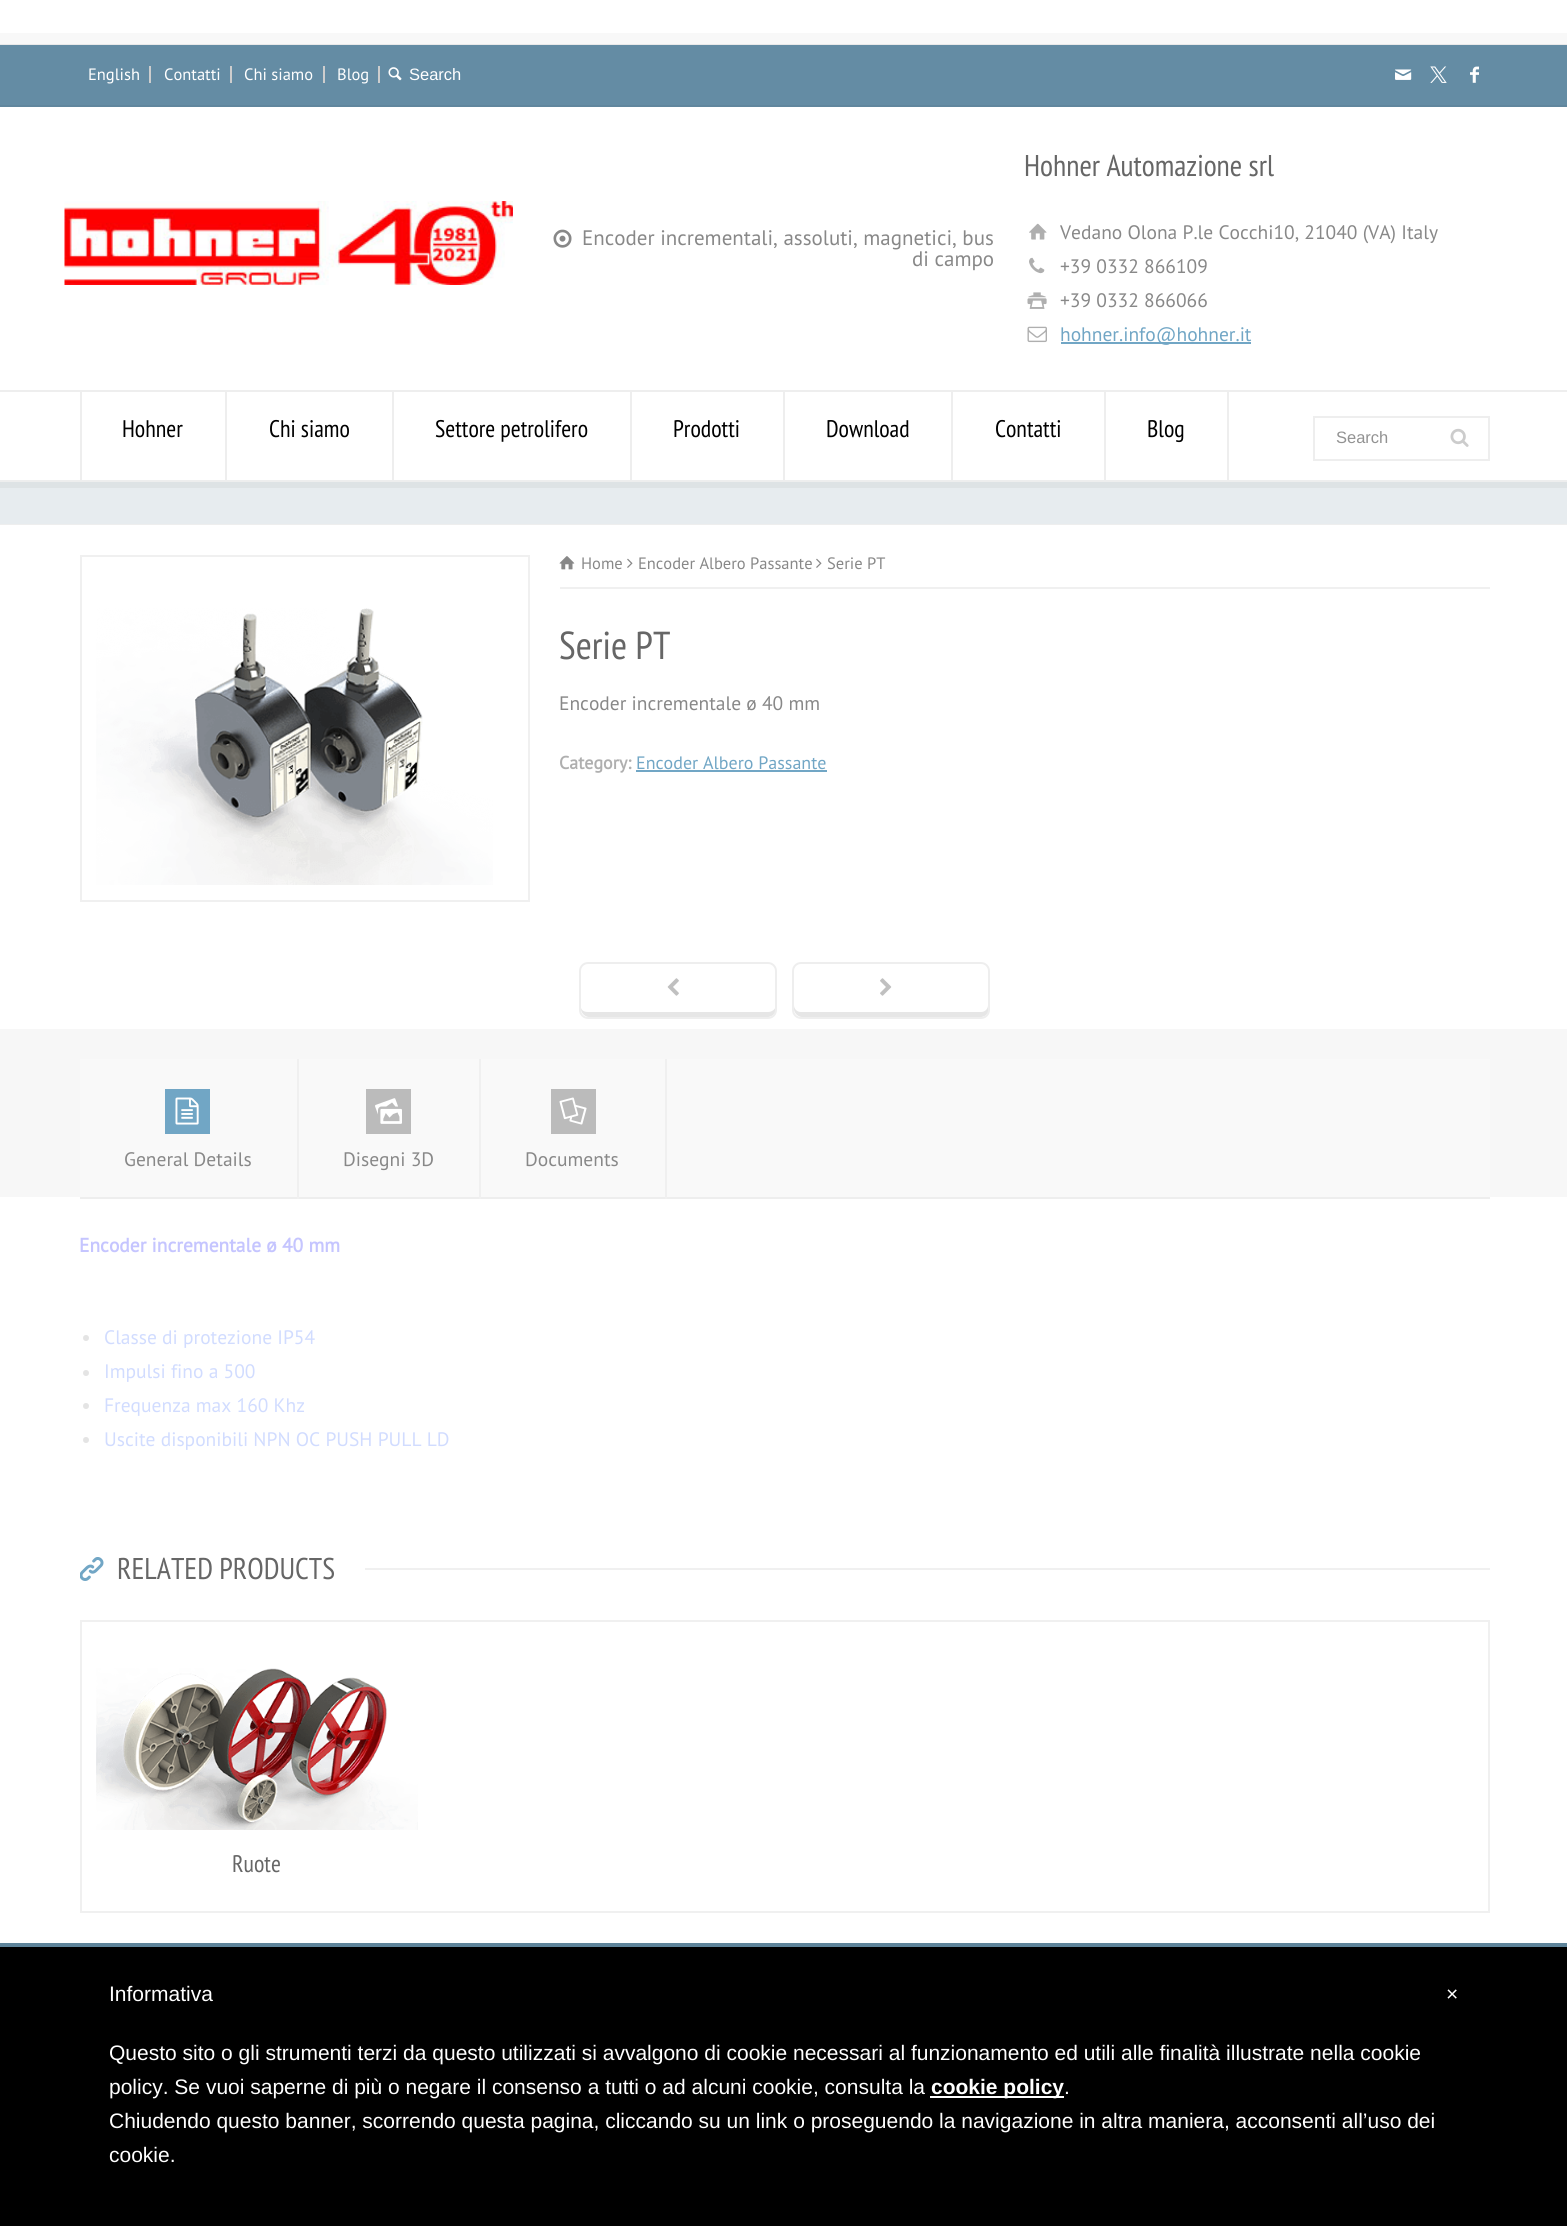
import math
import cairo


def round_path(ctx, x, y, w, h, r):
	ctx.new_sub_path()
	for i, (u, v) in enumerate([(x + w - r, y + h - r), (x + r, y + h - r), (x + r, y + r), (x + w - r, y + r)]):
		ctx.arc(u, v, r, i * math.pi / 2, (i + 1) * math.pi / 2)
	ctx.close_path()

def paste(ctx, path, x, y, w, h):
	ctx.save()
	ctx.set_source_surface(cairo.ImageSurface.create_from_png(path), x, y)
	ctx.rectangle(x, y, w, h)
	ctx.fill()
	ctx.restore()

def draw(ctx):
	ctx.set_source_rgb(1, 1, 1)
	ctx.paint()
	ctx.rectangle(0, 45, 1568, 2045)
	ctx.set_source_rgb(0.941, 0.941, 0.941)
	ctx.stroke()
	ctx.rectangle(-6, 39, 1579, 2057)
	ctx.set_source_rgba(0, 0, 0, 0.03)
	ctx.set_line_width(12)
	ctx.stroke()
	ctx.set_source_rgb(0.392, 0.549, 0.643)
	ctx.rectangle(0, 45, 1567, 60)
	ctx.fill()
	ctx.set_source_rgb(0.376, 0.525, 0.616)
	ctx.rectangle(0, 105, 1567, 2)
	ctx.fill()
	ctx.set_source_rgb(0.804, 0.804, 0.804)
	ctx.rectangle(149, 66, 2, 17)
	ctx.fill()
	ctx.select_font_face('PT Sans')
	ctx.set_font_size(16.5)
	ctx.set_source_rgb(1, 1, 1)
	ctx.move_to(88, 80)
	ctx.show_text('English')
	ctx.set_source_rgb(0.804, 0.804, 0.804)
	ctx.rectangle(230, 66, 2, 17)
	ctx.fill()
	ctx.set_source_rgb(1, 1, 1)
	ctx.move_to(164, 80)
	ctx.show_text('Contatti')
	ctx.set_source_rgb(0.804, 0.804, 0.804)
	ctx.rectangle(323, 66, 2, 17)
	ctx.fill()
	ctx.set_source_rgb(1, 1, 1)
	ctx.move_to(244, 80)
	ctx.show_text('Chi siamo')
	ctx.set_source_rgb(0.804, 0.804, 0.804)
	ctx.rectangle(378, 66, 2, 17)
	ctx.fill()
	ctx.set_source_rgb(1, 1, 1)
	ctx.move_to(337, 80)
	ctx.show_text('Blog')
	paste(ctx, 'media/1.png', 388, 67, 14, 14)
	ctx.select_font_face('Liberation Sans')
	ctx.move_to(409, 80)
	ctx.show_text('Search')
	paste(ctx, 'media/2.png', 1395, 69, 17, 11)
	paste(ctx, 'media/3.png', 1430, 66, 17, 17)
	paste(ctx, 'media/4.png', 1470, 66, 9, 17)
	ctx.rectangle(0, 107, 1, 283)
	ctx.fill()
	paste(ctx, 'media/5.png', 64, 201, 449, 84)
	paste(ctx, 'media/6.png', 553, 229, 19, 19)
	ctx.select_font_face('PT Sans')
	ctx.set_font_size(21)
	ctx.set_source_rgb(0.533, 0.533, 0.533)
	ctx.move_to(582, 245)
	ctx.show_text('Encoder incrementali, assoluti, magnetici, bus')
	ctx.move_to(912, 266)
	ctx.show_text('di campo')
	ctx.select_font_face('PT Sans Narrow')
	ctx.set_font_size(30)
	ctx.set_source_rgb(0.4, 0.4, 0.4)
	ctx.move_to(1024, 176)
	ctx.show_text('Hohner Automazione srl')
	paste(ctx, 'media/7.png', 1029, 223, 18, 17)
	ctx.select_font_face('PT Sans')
	ctx.set_font_size(19.5)
	ctx.set_source_rgb(0.533, 0.533, 0.533)
	ctx.move_to(1060, 239)
	ctx.show_text('Vedano Olona P.le Cocchi10, 21040 (VA) Italy')
	paste(ctx, 'media/8.png', 1029, 257, 16, 17)
	ctx.move_to(1060, 273)
	ctx.show_text('+39 0332 866109')
	paste(ctx, 'media/9.png', 1027, 292, 20, 17)
	ctx.move_to(1060, 307)
	ctx.show_text('+39 0332 866066')
	paste(ctx, 'media/10.png', 1027, 326, 20, 17)
	ctx.set_source_rgb(0.443, 0.651, 0.773)
	ctx.rectangle(1061, 342, 190, 2)
	ctx.fill()
	ctx.move_to(1060, 341)
	ctx.show_text('hohner.info@hohner.it')
	ctx.set_source_rgb(0.871, 0.89, 0.898)
	ctx.new_path()
	ctx.move_to(0, 482)
	ctx.line_to(0, 488)
	ctx.line_to(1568, 488)
	ctx.line_to(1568, 396)
	ctx.line_to(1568, 482)
	ctx.close_path()
	ctx.fill()
	ctx.set_source_rgb(1, 1, 1)
	ctx.rectangle(0, 392, 1, 88)
	ctx.fill()
	ctx.set_source_rgb(0.933, 0.933, 0.933)
	ctx.rectangle(0, 390, 1567, 2)
	ctx.rectangle(0, 480, 1567, 2)
	ctx.rectangle(225, 392, 2, 88)
	ctx.rectangle(80, 392, 2, 88)
	ctx.fill()
	ctx.select_font_face('PT Sans Narrow')
	ctx.set_font_size(24)
	ctx.set_source_rgb(0, 0, 0)
	ctx.move_to(122, 437)
	ctx.show_text('Hohner')
	ctx.set_source_rgb(0.933, 0.933, 0.933)
	ctx.rectangle(392, 392, 2, 88)
	ctx.fill()
	ctx.set_source_rgb(0, 0, 0)
	ctx.move_to(269, 437)
	ctx.show_text('Chi siamo')
	ctx.set_source_rgb(0.933, 0.933, 0.933)
	ctx.rectangle(630, 392, 2, 88)
	ctx.fill()
	ctx.set_source_rgb(0, 0, 0)
	ctx.move_to(435, 437)
	ctx.show_text('Settore petrolifero')
	ctx.set_source_rgb(0.933, 0.933, 0.933)
	ctx.rectangle(783, 392, 2, 88)
	ctx.fill()
	ctx.set_source_rgb(0, 0, 0)
	ctx.move_to(673, 437)
	ctx.show_text('Prodotti')
	ctx.set_source_rgb(0.933, 0.933, 0.933)
	ctx.rectangle(951, 392, 2, 88)
	ctx.fill()
	ctx.set_source_rgb(0, 0, 0)
	ctx.move_to(826, 437)
	ctx.show_text('Download')
	ctx.set_source_rgb(0.933, 0.933, 0.933)
	ctx.rectangle(1104, 392, 2, 88)
	ctx.fill()
	ctx.set_source_rgb(0, 0, 0)
	ctx.move_to(995, 437)
	ctx.show_text('Contatti')
	ctx.set_source_rgb(0.933, 0.933, 0.933)
	ctx.rectangle(1227, 392, 2, 88)
	ctx.fill()
	ctx.set_source_rgb(0, 0, 0)
	ctx.move_to(1147, 437)
	ctx.show_text('Blog')
	ctx.rectangle(1314, 417, 175, 43)
	ctx.set_source_rgb(0.933, 0.933, 0.933)
	ctx.set_line_width(2)
	ctx.stroke()
	ctx.select_font_face('Liberation Sans')
	ctx.set_font_size(16.5)
	ctx.set_source_rgb(0.573, 0.573, 0.573)
	ctx.move_to(1336, 443)
	ctx.show_text('Search')
	paste(ctx, 'media/11.png', 1450, 428, 19, 19)
	ctx.set_source_rgb(0.906, 0.925, 0.937)
	ctx.rectangle(0, 488, 1567, 36)
	ctx.fill()
	ctx.set_source_rgb(0.933, 0.933, 0.933)
	ctx.rectangle(0, 524, 1567, 1)
	ctx.fill()
	ctx.set_source_rgb(1, 1, 1)
	ctx.rectangle(0, 525, 1, 1418)
	ctx.fill()
	ctx.rectangle(81, 556, 448, 345)
	ctx.set_source_rgb(0.941, 0.941, 0.941)
	ctx.stroke()
	paste(ctx, 'media/12.png', 96, 608, 397, 277)
	ctx.rectangle(560, 587, 930, 2)
	ctx.fill()
	paste(ctx, 'media/13.png', 559, 556, 16, 14)
	ctx.select_font_face('PT Sans')
	ctx.set_source_rgb(0.533, 0.533, 0.533)
	ctx.move_to(581, 569)
	ctx.show_text('Home')
	paste(ctx, 'media/14.png', 627, 558, 6, 10)
	ctx.move_to(638, 569)
	ctx.show_text('Encoder Albero Passante')
	paste(ctx, 'media/14.png', 816, 558, 6, 10)
	ctx.move_to(827, 569)
	ctx.show_text('Serie PT')
	ctx.select_font_face('PT Sans Narrow')
	ctx.set_font_size(39)
	ctx.set_source_rgb(0.4, 0.4, 0.4)
	ctx.move_to(559, 659)
	ctx.show_text('Serie PT')
	ctx.select_font_face('PT Sans')
	ctx.set_font_size(19.5)
	ctx.set_source_rgb(0.533, 0.533, 0.533)
	ctx.move_to(559, 710)
	ctx.show_text('Encoder incrementale ø 40 mm')
	ctx.select_font_face('PT Sans', cairo.FONT_SLANT_NORMAL, cairo.FONT_WEIGHT_BOLD)
	ctx.set_font_size(18)
	ctx.set_source_rgb(0.686, 0.686, 0.686)
	ctx.move_to(559, 769)
	ctx.show_text('Category:')
	ctx.select_font_face('PT Sans')
	ctx.set_source_rgb(0.443, 0.651, 0.773)
	ctx.move_to(636, 769)
	ctx.show_text('Encoder Albero Passante')
	ctx.rectangle(636, 770, 191, 2)
	ctx.fill()
	ctx.set_source_rgb(0.902, 0.902, 0.902)
	ctx.new_path()
	ctx.move_to(581, 1008)
	ctx.line_to(581, 1009)
	ctx.curve_to(581, 1013, 585, 1017, 589, 1017)
	ctx.line_to(768, 1017)
	ctx.curve_to(772, 1017, 776, 1013, 776, 1009)
	ctx.line_to(776, 1005)
	ctx.curve_to(776, 1009, 772, 1012, 768, 1012)
	ctx.line_to(588, 1012)
	ctx.curve_to(585, 1012, 582, 1011, 581, 1008)
	ctx.close_path()
	ctx.fill()
	round_path(ctx, 580, 963, 196, 55, 8)
	ctx.set_source_rgb(0.933, 0.933, 0.933)
	ctx.stroke()
	paste(ctx, 'media/15.png', 667, 978, 12, 18)
	ctx.set_source_rgb(0.902, 0.902, 0.902)
	ctx.new_path()
	ctx.move_to(794, 1005)
	ctx.line_to(794, 1009)
	ctx.curve_to(794, 1013, 798, 1017, 802, 1017)
	ctx.line_to(981, 1017)
	ctx.curve_to(985, 1017, 989, 1013, 989, 1009)
	ctx.line_to(989, 971)
	ctx.curve_to(989, 970, 989, 968, 988, 967)
	ctx.line_to(988, 1005)
	ctx.curve_to(988, 1009, 985, 1012, 981, 1012)
	ctx.line_to(801, 1012)
	ctx.curve_to(797, 1012, 794, 1009, 794, 1005)
	ctx.close_path()
	ctx.fill()
	round_path(ctx, 793, 963, 196, 55, 8)
	ctx.set_source_rgb(0.933, 0.933, 0.933)
	ctx.stroke()
	paste(ctx, 'media/16.png', 880, 978, 12, 18)
	ctx.set_source_rgb(0.965, 0.965, 0.965)
	ctx.rectangle(0, 1029, 1567, 168)
	ctx.fill()
	ctx.set_source_rgb(0.976, 0.976, 0.976)
	ctx.rectangle(80, 1059, 1410, 138)
	ctx.fill()
	ctx.set_source_rgb(0.933, 0.933, 0.933)
	ctx.rectangle(80, 1197, 1410, 2)
	ctx.fill()
	ctx.set_source_rgb(0.941, 0.941, 0.941)
	ctx.rectangle(297, 1059, 2, 140)
	ctx.fill()
	ctx.set_source_rgb(0.443, 0.651, 0.773)
	ctx.rectangle(165, 1089, 45, 45)
	ctx.fill()
	paste(ctx, 'media/17.png', 175, 1097, 24, 28)
	ctx.set_font_size(19.5)
	ctx.set_source_rgb(0.533, 0.533, 0.533)
	ctx.move_to(124, 1166)
	ctx.show_text('General Details')
	ctx.set_source_rgb(0.941, 0.941, 0.941)
	ctx.rectangle(479, 1059, 2, 140)
	ctx.fill()
	ctx.set_source_rgb(0.733, 0.733, 0.733)
	ctx.rectangle(366, 1089, 45, 45)
	ctx.fill()
	paste(ctx, 'media/18.png', 375, 1098, 27, 26)
	ctx.set_source_rgb(0.533, 0.533, 0.533)
	ctx.move_to(343, 1166)
	ctx.show_text('Disegni 3D')
	ctx.set_source_rgb(0.941, 0.941, 0.941)
	ctx.rectangle(665, 1059, 2, 140)
	ctx.fill()
	ctx.set_source_rgb(0.733, 0.733, 0.733)
	ctx.rectangle(551, 1089, 45, 45)
	ctx.fill()
	paste(ctx, 'media/19.png', 559, 1097, 28, 28)
	ctx.set_source_rgb(0.533, 0.533, 0.533)
	ctx.move_to(525, 1166)
	ctx.show_text('Documents')
	ctx.select_font_face('PT Sans', cairo.FONT_SLANT_NORMAL, cairo.FONT_WEIGHT_BOLD)
	ctx.set_source_rgb(0.773, 0.773, 1)
	ctx.move_to(79, 1252)
	ctx.show_text('Encoder incrementale ø 40 mm')
	ctx.set_source_rgb(0.894, 0.894, 0.894)
	ctx.new_path()
	ctx.arc(86, 1338, 3, 0, 2 * math.pi)
	ctx.fill()
	ctx.select_font_face('PT Sans')
	ctx.set_source_rgb(0.82, 0.863, 1)
	ctx.move_to(104, 1344)
	ctx.show_text('Classe di protezione IP54')
	ctx.set_source_rgb(0.894, 0.894, 0.894)
	ctx.new_path()
	ctx.arc(86, 1373, 3, 0, 2 * math.pi)
	ctx.fill()
	ctx.set_source_rgb(0.82, 0.863, 1)
	ctx.move_to(104, 1378)
	ctx.show_text('Impulsi fino a 500')
	ctx.set_source_rgb(0.894, 0.894, 0.894)
	ctx.new_path()
	ctx.arc(86, 1406, 3, 0, 2 * math.pi)
	ctx.fill()
	ctx.set_source_rgb(0.82, 0.863, 1)
	ctx.move_to(104, 1412)
	ctx.show_text('Frequenza max 160 Khz')
	ctx.set_source_rgb(0.894, 0.894, 0.894)
	ctx.new_path()
	ctx.arc(86, 1440, 3, 0, 2 * math.pi)
	ctx.fill()
	ctx.set_source_rgb(0.82, 0.863, 1)
	ctx.move_to(104, 1446)
	ctx.show_text('Uscite disponibili NPN OC PUSH PULL LD')
	paste(ctx, 'media/20.png', 80, 1557, 24, 24)
	ctx.select_font_face('PT Sans Narrow')
	ctx.set_font_size(30)
	ctx.set_source_rgb(0.4, 0.4, 0.4)
	ctx.move_to(117, 1579)
	ctx.show_text('RELATED PRODUCTS')
	ctx.set_source_rgb(0.941, 0.941, 0.941)
	ctx.rectangle(365, 1568, 1125, 2)
	ctx.fill()
	ctx.rectangle(81, 1621, 1408, 291)
	ctx.stroke()
	paste(ctx, 'media/21.png', 96, 1668, 322, 162)
	ctx.set_font_size(24)
	ctx.set_source_rgb(0.4, 0.4, 0.4)
	ctx.move_to(232, 1872)
	ctx.show_text('Ruote')
	ctx.set_source_rgb(0.369, 0.518, 0.604)
	ctx.rectangle(0, 1943, 1567, 4)
	ctx.fill()
	ctx.set_source_rgb(0, 0, 0)
	ctx.rectangle(0, 1947, 1567, 279)
	ctx.fill()
	ctx.select_font_face('Liberation Sans')
	ctx.set_font_size(21)
	ctx.set_source_rgb(1, 1, 1)
	for x, y, s in [
		(109, 2001, 'Informativa'),
		(109, 2060, 'Questo sito o gli strumenti terzi da questo utilizzati si avvalgono di cookie necessari al funzionamento ed utili alle finalità illustrate nella cookie'),
		(109, 2094, 'policy. Se vuoi saperne di più o negare il consenso a tutti o ad alcuni cookie, consulta la'),
	]:
		ctx.move_to(x, y)
		ctx.show_text(s)
	ctx.rectangle(930, 2096, 134, 2)
	ctx.fill()
	ctx.select_font_face('Liberation Sans', cairo.FONT_SLANT_NORMAL, cairo.FONT_WEIGHT_BOLD)
	ctx.move_to(931, 2094)
	ctx.show_text('cookie policy')
	ctx.select_font_face('Liberation Sans')
	for x, y, s in [
		(1064, 2094, '.'),
		(109, 2128, 'Chiudendo questo banner, scorrendo questa pagina, cliccando su un link o proseguendo la navigazione in altra maniera, acconsenti all’uso dei'),
		(109, 2162, 'cookie.'),
		(1446, 2001, '×'),
	]:
		ctx.move_to(x, y)
		ctx.show_text(s)


surface = cairo.ImageSurface(cairo.FORMAT_RGB24, 1567, 2226)
ctx = cairo.Context(surface)
options = cairo.FontOptions()
options.set_hint_metrics(cairo.HINT_METRICS_OFF)
options.set_hint_style(cairo.HINT_STYLE_NONE)
ctx.set_font_options(options)
ctx.set_miter_limit(4)
draw(ctx)
surface.write_to_png('image.png')
